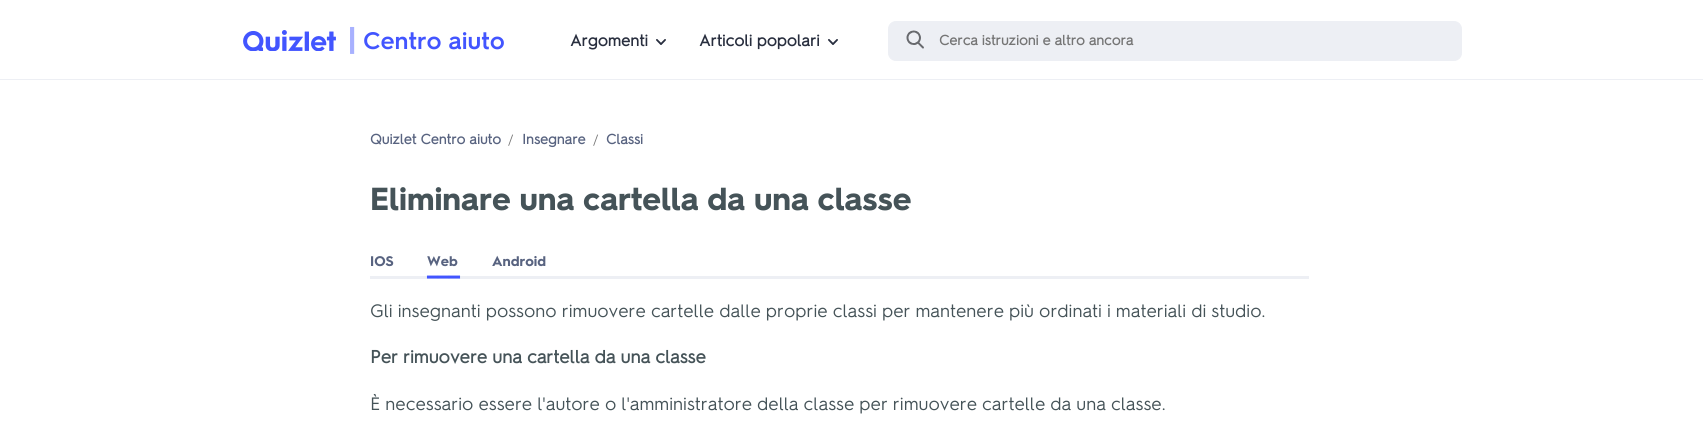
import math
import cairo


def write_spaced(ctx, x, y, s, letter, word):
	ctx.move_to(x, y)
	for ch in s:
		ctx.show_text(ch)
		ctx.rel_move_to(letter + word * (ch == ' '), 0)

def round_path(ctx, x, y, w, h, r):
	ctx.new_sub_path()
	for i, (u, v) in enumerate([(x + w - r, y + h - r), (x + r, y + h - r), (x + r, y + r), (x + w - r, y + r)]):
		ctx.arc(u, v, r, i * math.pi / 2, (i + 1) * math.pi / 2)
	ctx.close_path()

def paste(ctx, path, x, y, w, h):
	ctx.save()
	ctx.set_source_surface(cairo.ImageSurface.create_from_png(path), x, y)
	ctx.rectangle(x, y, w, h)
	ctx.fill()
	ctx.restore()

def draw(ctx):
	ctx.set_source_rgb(1, 1, 1)
	ctx.paint()
	ctx.set_source_rgb(0.929, 0.937, 0.957)
	ctx.rectangle(0, 79, 1703, 1)
	ctx.fill()
	paste(ctx, 'media/1.png', 243, 30, 93, 21)
	ctx.select_font_face('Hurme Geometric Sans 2 SemiBold')
	ctx.set_font_size(36)
	ctx.set_source_rgb(0.659, 0.694, 1)
	write_spaced(ctx, 347, 53, '|', -3, 0)
	ctx.set_font_size(24)
	ctx.set_source_rgb(0.259, 0.333, 1)
	ctx.move_to(363, 49)
	ctx.show_text('Centro aiuto')
	ctx.select_font_face('Hurme Geometric Sans 2', cairo.FONT_SLANT_NORMAL, cairo.FONT_WEIGHT_BOLD)
	ctx.set_font_size(16)
	ctx.set_source_rgb(0.157, 0.18, 0.243)
	ctx.move_to(570, 46)
	ctx.show_text('Argomenti')
	paste(ctx, 'media/2.png', 656, 39, 10, 6)
	ctx.move_to(699, 46)
	ctx.show_text('Articoli popolari')
	paste(ctx, 'media/2.png', 828, 39, 10, 6)
	ctx.set_source_rgb(0.929, 0.937, 0.957)
	round_path(ctx, 888.5, 21.5, 573, 39, 7.5)
	ctx.fill_preserve()
	ctx.set_line_width(1)
	ctx.stroke()
	paste(ctx, 'media/3.png', 906, 30, 18, 19)
	ctx.set_font_size(14)
	ctx.set_source_rgb(0.459, 0.459, 0.459)
	ctx.move_to(939, 45)
	ctx.show_text('Cerca istruzioni e altro ancora')
	ctx.set_source_rgb(0.345, 0.388, 0.502)
	ctx.move_to(370, 144)
	ctx.show_text('Quizlet Centro aiuto')
	ctx.select_font_face('Hurme Geometric Sans 2')
	ctx.set_font_size(13)
	ctx.set_source_rgb(0.459, 0.459, 0.459)
	ctx.move_to(508, 144)
	ctx.show_text('/')
	ctx.select_font_face('Hurme Geometric Sans 2', cairo.FONT_SLANT_NORMAL, cairo.FONT_WEIGHT_BOLD)
	ctx.set_font_size(14)
	ctx.set_source_rgb(0.345, 0.388, 0.502)
	ctx.move_to(522, 144)
	ctx.show_text('Insegnare')
	ctx.select_font_face('Hurme Geometric Sans 2')
	ctx.set_font_size(13)
	ctx.set_source_rgb(0.459, 0.459, 0.459)
	ctx.move_to(593, 144)
	ctx.show_text('/')
	ctx.select_font_face('Hurme Geometric Sans 2', cairo.FONT_SLANT_NORMAL, cairo.FONT_WEIGHT_BOLD)
	ctx.set_font_size(14)
	ctx.set_source_rgb(0.345, 0.388, 0.502)
	ctx.move_to(606, 144)
	ctx.show_text('Classi')
	ctx.select_font_face('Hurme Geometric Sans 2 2', cairo.FONT_SLANT_NORMAL, cairo.FONT_WEIGHT_BOLD)
	ctx.set_font_size(32)
	ctx.set_source_rgb(0.271, 0.325, 0.345)
	ctx.move_to(370, 210)
	ctx.show_text('Eliminare una cartella da una classe')
	ctx.set_font_size(14)
	ctx.set_source_rgb(0.345, 0.388, 0.502)
	ctx.move_to(370, 266)
	ctx.show_text('IOS')
	ctx.move_to(427, 266)
	ctx.show_text('Web')
	ctx.set_source_rgb(0.929, 0.937, 0.957)
	ctx.rectangle(370, 276, 939, 3)
	ctx.fill()
	ctx.set_font_size(26)
	ctx.set_source_rgb(0.259, 0.333, 1)
	ctx.move_to(427, 274)
	ctx.show_text('___')
	ctx.set_font_size(14)
	ctx.set_source_rgb(0.345, 0.388, 0.502)
	ctx.move_to(492, 266)
	ctx.show_text('Android')
	ctx.select_font_face('Hurme Geometric Sans 2')
	ctx.set_font_size(18)
	ctx.set_source_rgb(0.271, 0.325, 0.345)
	ctx.move_to(370, 317)
	ctx.show_text('Gli insegnanti possono rimuovere cartelle dalle proprie classi per mantenere più ordinati i materiali di studio.')
	ctx.select_font_face('Hurme Geometric Sans 2', cairo.FONT_SLANT_NORMAL, cairo.FONT_WEIGHT_BOLD)
	ctx.move_to(370, 363)
	ctx.show_text('Per rimuovere una cartella da una classe')
	ctx.select_font_face('Hurme Geometric Sans 2')
	ctx.move_to(370, 410)
	ctx.show_text('È necessario essere l\'autore o l\'amministratore della classe per rimuovere cartelle da una classe.')


surface = cairo.ImageSurface(cairo.FORMAT_RGB24, 1703, 447)
ctx = cairo.Context(surface)
options = cairo.FontOptions()
options.set_hint_metrics(cairo.HINT_METRICS_OFF)
options.set_hint_style(cairo.HINT_STYLE_NONE)
ctx.set_font_options(options)
ctx.set_miter_limit(4)
draw(ctx)
surface.write_to_png('image.png')
